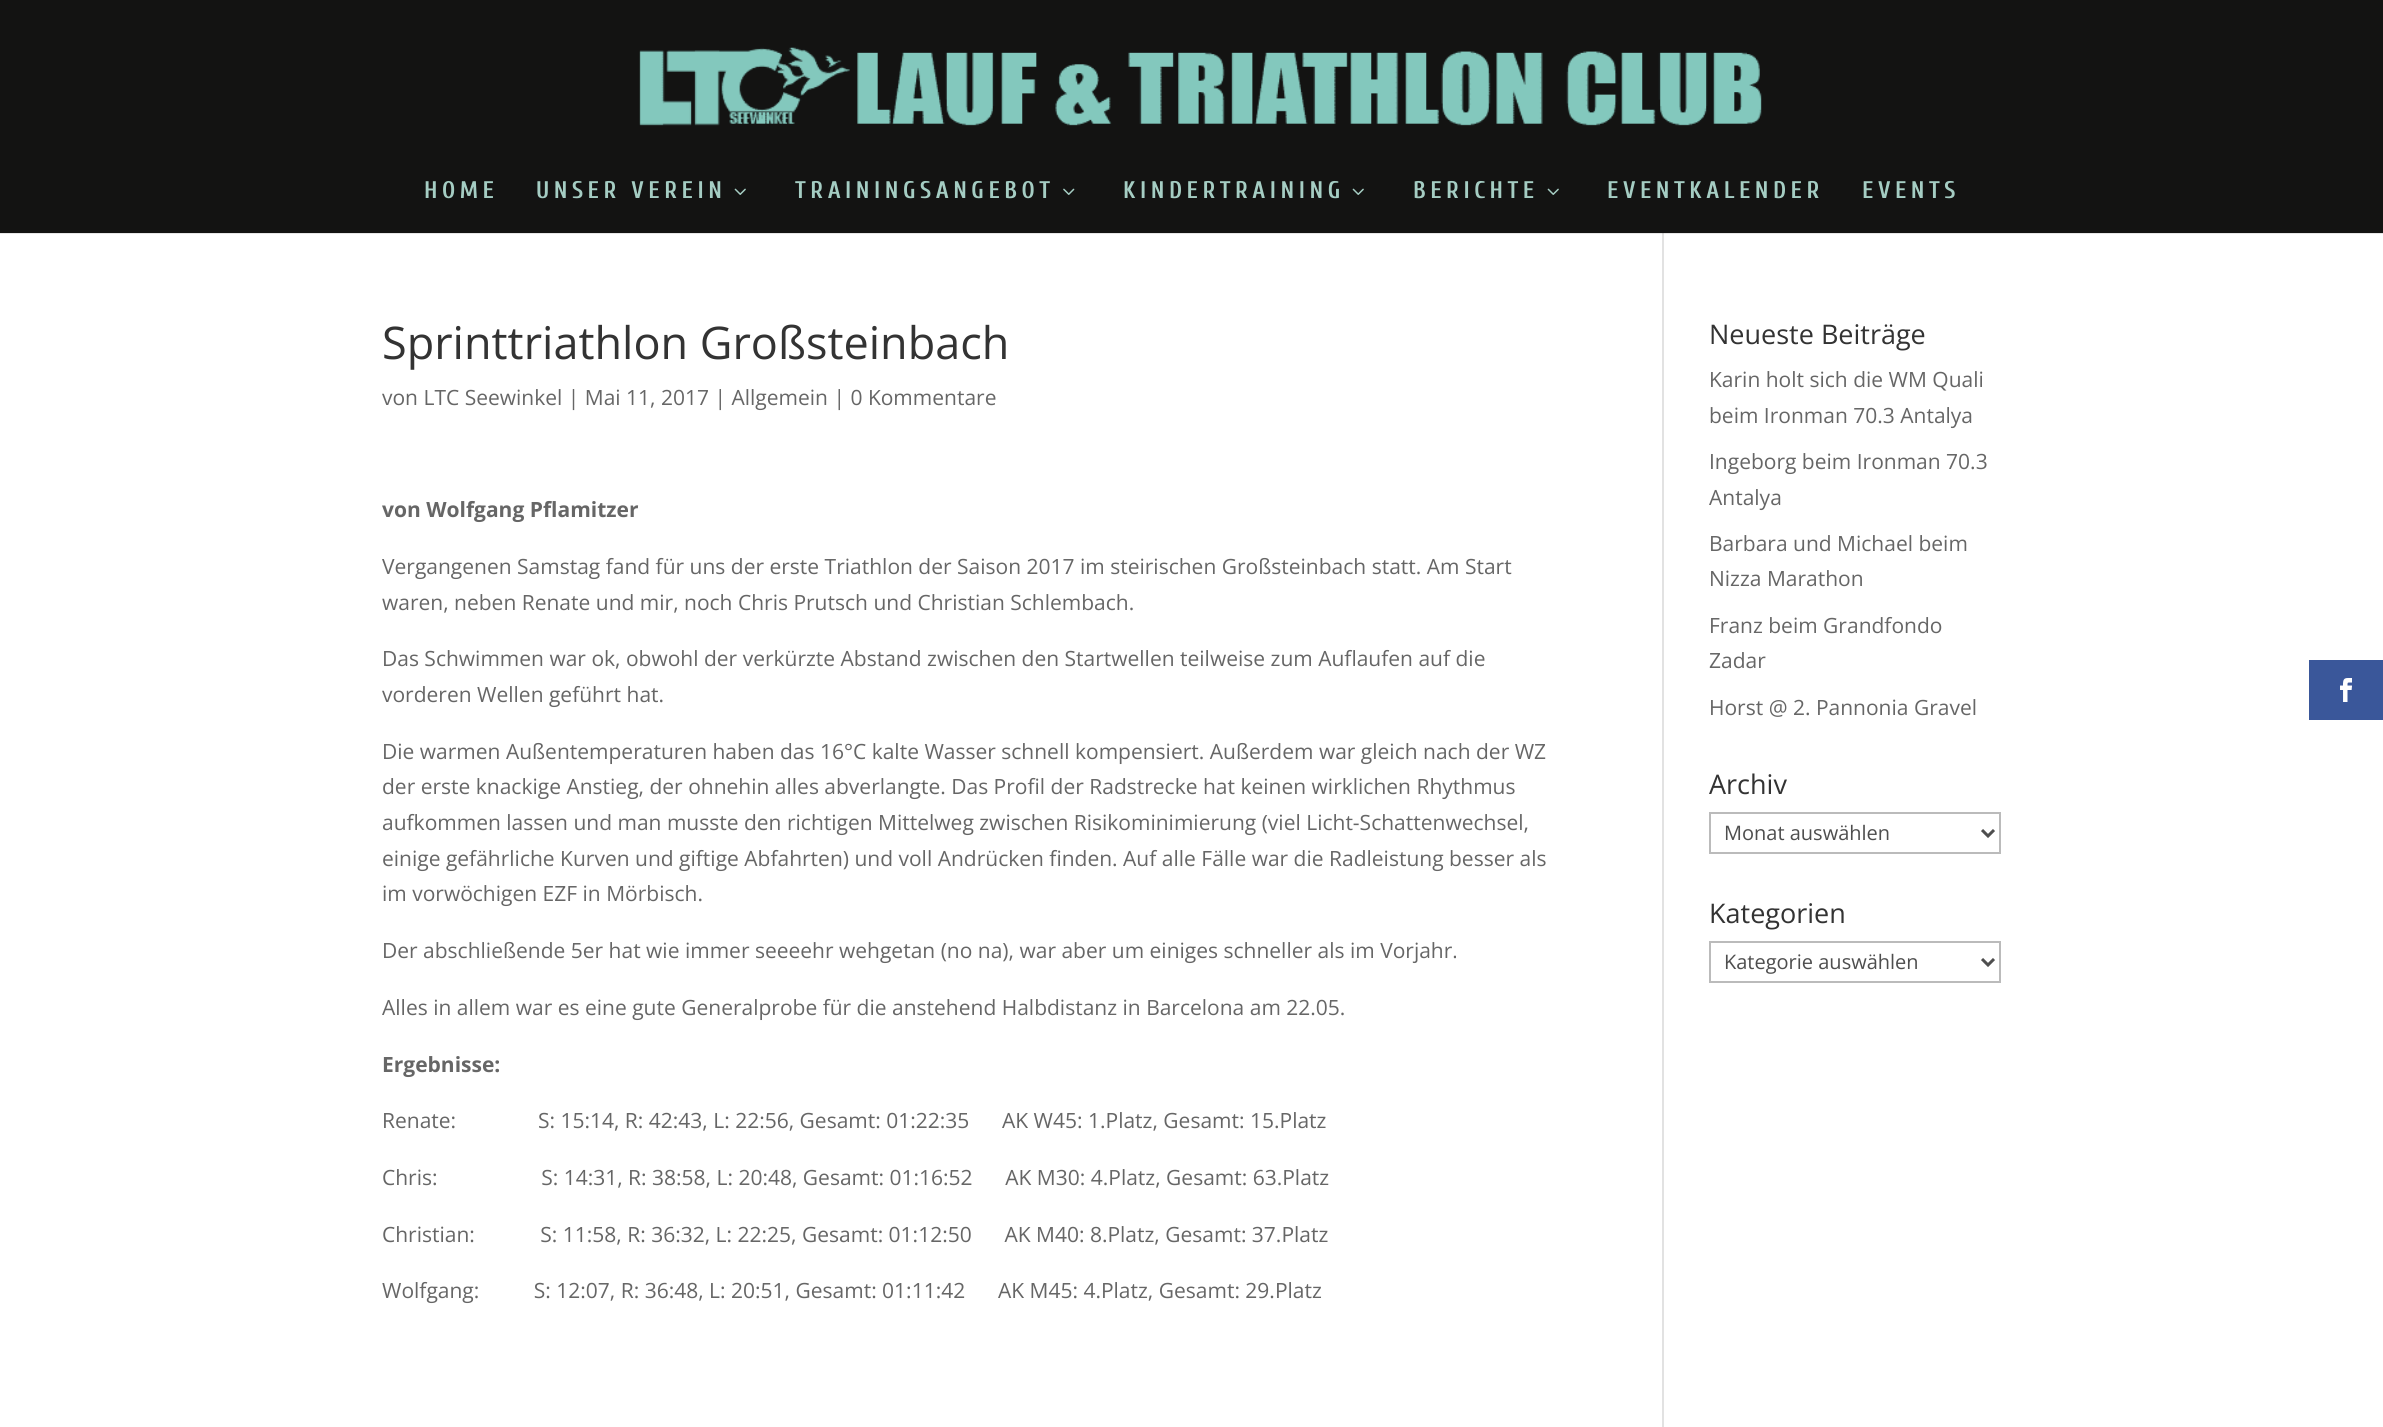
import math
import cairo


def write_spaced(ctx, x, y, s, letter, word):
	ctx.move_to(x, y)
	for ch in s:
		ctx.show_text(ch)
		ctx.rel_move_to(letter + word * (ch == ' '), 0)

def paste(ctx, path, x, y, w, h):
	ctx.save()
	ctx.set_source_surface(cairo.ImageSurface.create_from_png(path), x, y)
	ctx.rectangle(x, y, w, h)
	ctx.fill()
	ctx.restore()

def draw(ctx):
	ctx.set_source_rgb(1, 1, 1)
	ctx.paint()
	ctx.set_source_rgb(0.886, 0.886, 0.886)
	ctx.rectangle(1662, 233, 2, 1194)
	ctx.fill()
	ctx.set_source_rgba(0, 0, 0, 0.1)
	ctx.new_path()
	ctx.move_to(0, 232)
	ctx.line_to(0, 234)
	ctx.line_to(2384, 234)
	ctx.line_to(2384, 2)
	ctx.line_to(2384, 232)
	ctx.close_path()
	ctx.fill()
	ctx.set_source_rgb(0.078, 0.078, 0.071)
	ctx.rectangle(0, 0, 2383, 233)
	ctx.fill()
	paste(ctx, 'media/1.png', 639, 47, 1123, 79)
	ctx.select_font_face('Cuprum', cairo.FONT_SLANT_NORMAL, cairo.FONT_WEIGHT_BOLD)
	ctx.set_font_size(24)
	ctx.set_source_rgb(0.647, 0.804, 0.765)
	write_spaced(ctx, 424, 198, 'HOME', 4.5, 0)
	write_spaced(ctx, 536, 198, 'UNSER VEREIN', 4.5, 0)
	paste(ctx, 'media/2.png', 734, 188, 12, 7)
	write_spaced(ctx, 795, 198, 'TRAININGSANGEBOT', 4.5, 0)
	paste(ctx, 'media/3.png', 1063, 188, 12, 7)
	write_spaced(ctx, 1123, 198, 'KINDERTRAINING', 4.5, 0)
	paste(ctx, 'media/2.png', 1352, 188, 12, 7)
	write_spaced(ctx, 1413, 198, 'BERICHTE', 4.5, 0)
	paste(ctx, 'media/2.png', 1547, 188, 12, 7)
	write_spaced(ctx, 1607, 198, 'EVENTKALENDER', 4.5, 0)
	write_spaced(ctx, 1862, 198, 'EVENTS', 4.5, 0)
	ctx.select_font_face('Open Sans')
	ctx.set_font_size(45)
	ctx.set_source_rgb(0.2, 0.2, 0.2)
	ctx.move_to(382, 359)
	ctx.show_text('Sprinttriathlon Großsteinbach')
	ctx.set_font_size(21)
	ctx.set_source_rgb(0.4, 0.4, 0.4)
	ctx.move_to(382, 405)
	ctx.show_text('von LTC Seewinkel | Mai 11, 2017 | Allgemein | 0 Kommentare')
	ctx.select_font_face('Open Sans', cairo.FONT_SLANT_NORMAL, cairo.FONT_WEIGHT_BOLD)
	ctx.move_to(382, 517)
	ctx.show_text('von Wolfgang Pflamitzer')
	ctx.select_font_face('Open Sans')
	for x, y, s in [
		(382, 574, 'Vergangenen Samstag fand für uns der erste Triathlon der Saison 2017 im steirischen Großsteinbach statt. Am Start'),
		(382, 610, 'waren, neben Renate und mir, noch Chris Prutsch und Christian Schlembach.'),
		(382, 666, 'Das Schwimmen war ok, obwohl der verkürzte Abstand zwischen den Startwellen teilweise zum Auflaufen auf die'),
		(382, 702, 'vorderen Wellen geführt hat.'),
		(382, 759, 'Die warmen Außentemperaturen haben das 16°C kalte Wasser schnell kompensiert. Außerdem war gleich nach der WZ'),
		(382, 794, 'der erste knackige Anstieg, der ohnehin alles abverlangte. Das Profil der Radstrecke hat keinen wirklichen Rhythmus'),
		(382, 830, 'aufkommen lassen und man musste den richtigen Mittelweg zwischen Risikominimierung (viel Licht-Schattenwechsel,'),
		(382, 866, 'einige gefährliche Kurven und giftige Abfahrten) und voll Andrücken finden. Auf alle Fälle war die Radleistung besser als'),
		(382, 901, 'im vorwöchigen EZF in Mörbisch.'),
		(382, 958, 'Der abschließende 5er hat wie immer seeeehr wehgetan (no na), war aber um einiges schneller als im Vorjahr.'),
		(382, 1015, 'Alles in allem war es eine gute Generalprobe für die anstehend Halbdistanz in Barcelona am 22.05.'),
	]:
		ctx.move_to(x, y)
		ctx.show_text(s)
	ctx.select_font_face('Open Sans', cairo.FONT_SLANT_NORMAL, cairo.FONT_WEIGHT_BOLD)
	ctx.move_to(382, 1072)
	ctx.show_text('Ergebnisse:')
	ctx.select_font_face('Open Sans')
	for x, y, s in [
		(382, 1128, 'Renate:               S: 15:14, R: 42:43, L: 22:56, Gesamt: 01:22:35      AK W45: 1.Platz, Gesamt: 15.Platz'),
		(382, 1185, 'Chris:                   S: 14:31, R: 38:58, L: 20:48, Gesamt: 01:16:52      AK M30: 4.Platz, Gesamt: 63.Platz'),
		(382, 1242, 'Christian:            S: 11:58, R: 36:32, L: 22:25, Gesamt: 01:12:50      AK M40: 8.Platz, Gesamt: 37.Platz'),
		(382, 1298, 'Wolfgang:          S: 12:07, R: 36:48, L: 20:51, Gesamt: 01:11:42      AK M45: 4.Platz, Gesamt: 29.Platz'),
	]:
		ctx.move_to(x, y)
		ctx.show_text(s)
	ctx.set_font_size(27)
	ctx.set_source_rgb(0.2, 0.2, 0.2)
	ctx.move_to(1709, 344)
	ctx.show_text('Neueste Beiträge')
	ctx.set_font_size(21)
	ctx.set_source_rgb(0.4, 0.4, 0.4)
	for x, y, s in [
		(1709, 387, 'Karin holt sich die WM Quali'),
		(1709, 423, 'beim Ironman 70.3 Antalya'),
		(1709, 469, 'Ingeborg beim Ironman 70.3'),
		(1709, 505, 'Antalya'),
		(1709, 551, 'Barbara und Michael beim'),
		(1709, 586, 'Nizza Marathon'),
		(1709, 633, 'Franz beim Grandfondo'),
		(1709, 668, 'Zadar'),
		(1709, 715, 'Horst @ 2. Pannonia Gravel'),
	]:
		ctx.move_to(x, y)
		ctx.show_text(s)
	ctx.set_font_size(27)
	ctx.set_source_rgb(0.2, 0.2, 0.2)
	ctx.move_to(1709, 794)
	ctx.show_text('Archiv')
	ctx.rectangle(1710, 813, 290, 40)
	ctx.set_source_rgb(0.733, 0.733, 0.733)
	ctx.stroke()
	ctx.new_path()
	ctx.move_to(1982, 830)
	ctx.line_to(1988, 836)
	ctx.line_to(1994, 830)
	ctx.set_source_rgb(0.306, 0.306, 0.306)
	ctx.set_line_width(3)
	ctx.stroke()
	ctx.set_font_size(20)
	ctx.move_to(1724, 840)
	ctx.show_text('Monat auswählen')
	ctx.set_font_size(27)
	ctx.set_source_rgb(0.2, 0.2, 0.2)
	ctx.move_to(1709, 923)
	ctx.show_text('Kategorien')
	ctx.rectangle(1710, 942, 290, 40)
	ctx.set_source_rgb(0.733, 0.733, 0.733)
	ctx.set_line_width(2)
	ctx.stroke()
	ctx.new_path()
	ctx.move_to(1982, 959)
	ctx.line_to(1988, 965)
	ctx.line_to(1994, 959)
	ctx.set_source_rgb(0.306, 0.306, 0.306)
	ctx.set_line_width(3)
	ctx.stroke()
	ctx.set_font_size(20)
	ctx.move_to(1724, 969)
	ctx.show_text('Kategorie auswählen')
	ctx.set_source_rgb(0.227, 0.341, 0.604)
	ctx.rectangle(2309, 660, 74, 60)
	ctx.fill()
	paste(ctx, 'media/4.png', 2340, 678, 12, 24)


surface = cairo.ImageSurface(cairo.FORMAT_RGB24, 2383, 1427)
ctx = cairo.Context(surface)
options = cairo.FontOptions()
options.set_hint_metrics(cairo.HINT_METRICS_OFF)
options.set_hint_style(cairo.HINT_STYLE_NONE)
ctx.set_font_options(options)
ctx.set_miter_limit(4)
draw(ctx)
surface.write_to_png('image.png')
